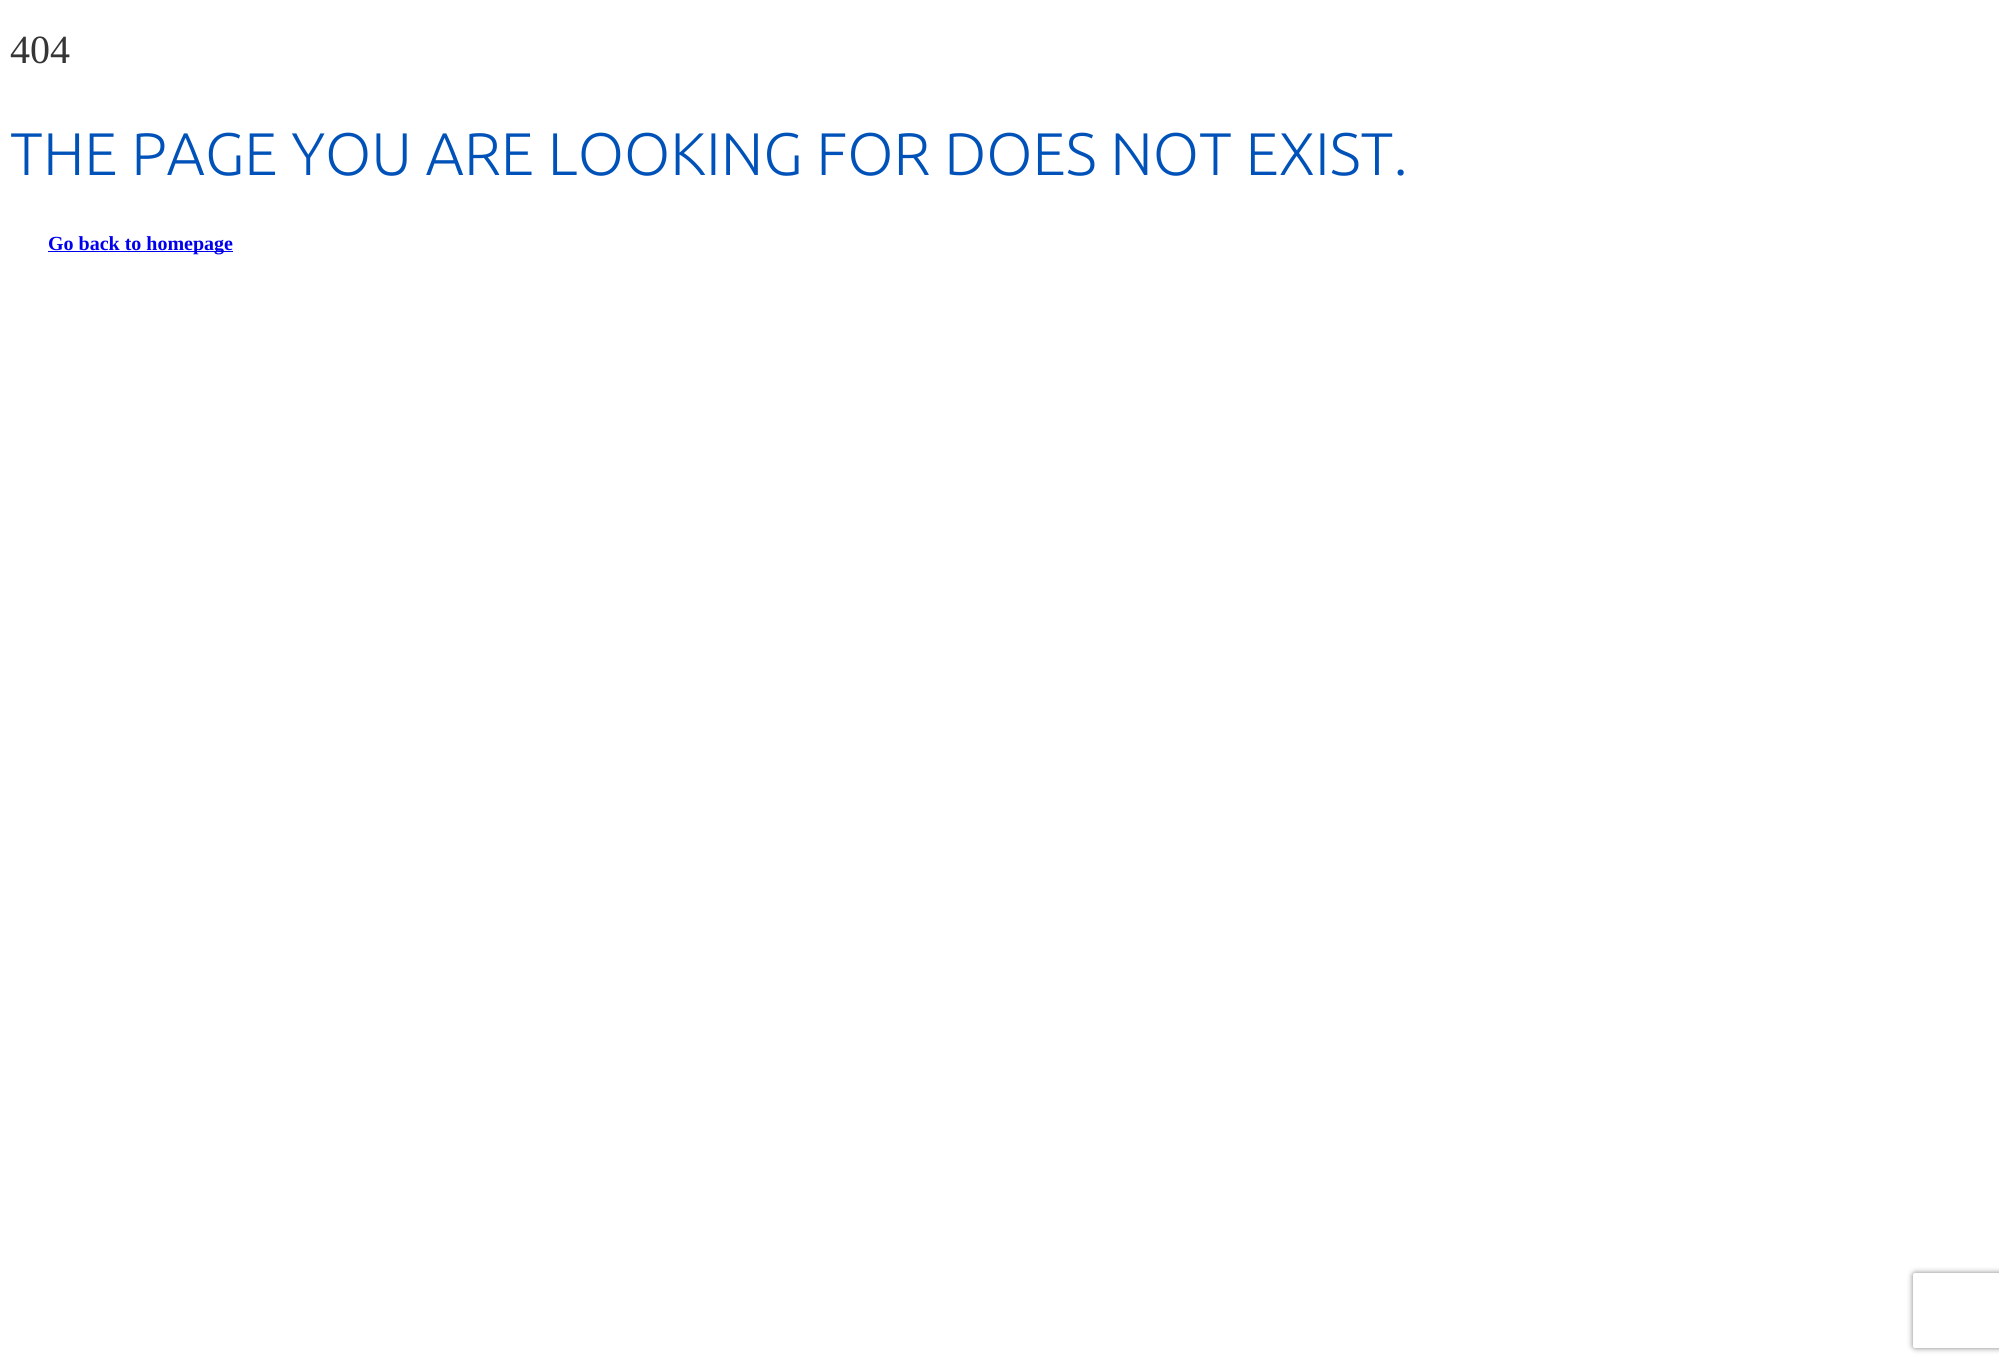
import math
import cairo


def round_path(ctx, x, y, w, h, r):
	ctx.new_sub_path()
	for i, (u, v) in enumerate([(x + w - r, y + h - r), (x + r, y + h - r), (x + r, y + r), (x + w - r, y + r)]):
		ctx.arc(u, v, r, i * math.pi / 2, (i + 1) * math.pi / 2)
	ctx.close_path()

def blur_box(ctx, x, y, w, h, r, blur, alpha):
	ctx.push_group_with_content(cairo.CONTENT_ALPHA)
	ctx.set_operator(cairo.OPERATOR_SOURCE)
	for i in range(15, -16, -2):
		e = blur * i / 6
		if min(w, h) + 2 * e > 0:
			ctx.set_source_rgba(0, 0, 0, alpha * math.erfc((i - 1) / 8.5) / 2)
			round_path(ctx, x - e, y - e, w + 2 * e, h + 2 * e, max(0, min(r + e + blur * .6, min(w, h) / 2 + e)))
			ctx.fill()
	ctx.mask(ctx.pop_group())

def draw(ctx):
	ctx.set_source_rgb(1, 1, 1)
	ctx.paint()
	ctx.select_font_face('Liberation Serif')
	ctx.set_font_size(40)
	ctx.set_source_rgb(0.208, 0.208, 0.208)
	ctx.move_to(10, 63)
	ctx.show_text('404')
	ctx.select_font_face('Ubuntu Light')
	ctx.set_font_size(60)
	ctx.set_source_rgb(0, 0.322, 0.725)
	ctx.move_to(10, 175)
	ctx.show_text('THE PAGE YOU ARE LOOKING FOR DOES NOT EXIST.')
	ctx.set_source_rgb(0, 0, 0.933)
	ctx.rectangle(48, 251, 185, 1)
	ctx.fill()
	ctx.select_font_face('Liberation Serif', cairo.FONT_SLANT_NORMAL, cairo.FONT_WEIGHT_BOLD)
	ctx.set_font_size(20)
	ctx.move_to(48, 250)
	ctx.show_text('Go back to homepage')
	ctx.save()
	ctx.set_fill_rule(cairo.FILL_RULE_EVEN_ODD)
	ctx.new_path()
	ctx.move_to(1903, 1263)
	ctx.line_to(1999, 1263)
	ctx.line_to(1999, 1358)
	ctx.line_to(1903, 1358)
	ctx.close_path()
	ctx.move_to(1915.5, 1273)
	ctx.line_to(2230.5, 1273)
	ctx.curve_to(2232, 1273, 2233, 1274, 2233, 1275.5)
	ctx.line_to(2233, 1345.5)
	ctx.curve_to(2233, 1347, 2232, 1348, 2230.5, 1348)
	ctx.line_to(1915.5, 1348)
	ctx.curve_to(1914, 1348, 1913, 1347, 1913, 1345.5)
	ctx.line_to(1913, 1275.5)
	ctx.curve_to(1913, 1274, 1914, 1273, 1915.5, 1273)
	ctx.close_path()
	ctx.clip()
	ctx.set_source_rgb(0.502, 0.502, 0.502)
	blur_box(ctx, 1913, 1273, 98, 75, 2.5, 3, 1)
	ctx.restore()


surface = cairo.ImageSurface(cairo.FORMAT_RGB24, 1999, 1365)
ctx = cairo.Context(surface)
options = cairo.FontOptions()
options.set_hint_metrics(cairo.HINT_METRICS_OFF)
options.set_hint_style(cairo.HINT_STYLE_NONE)
ctx.set_font_options(options)
ctx.set_miter_limit(4)
draw(ctx)
surface.write_to_png('image.png')
